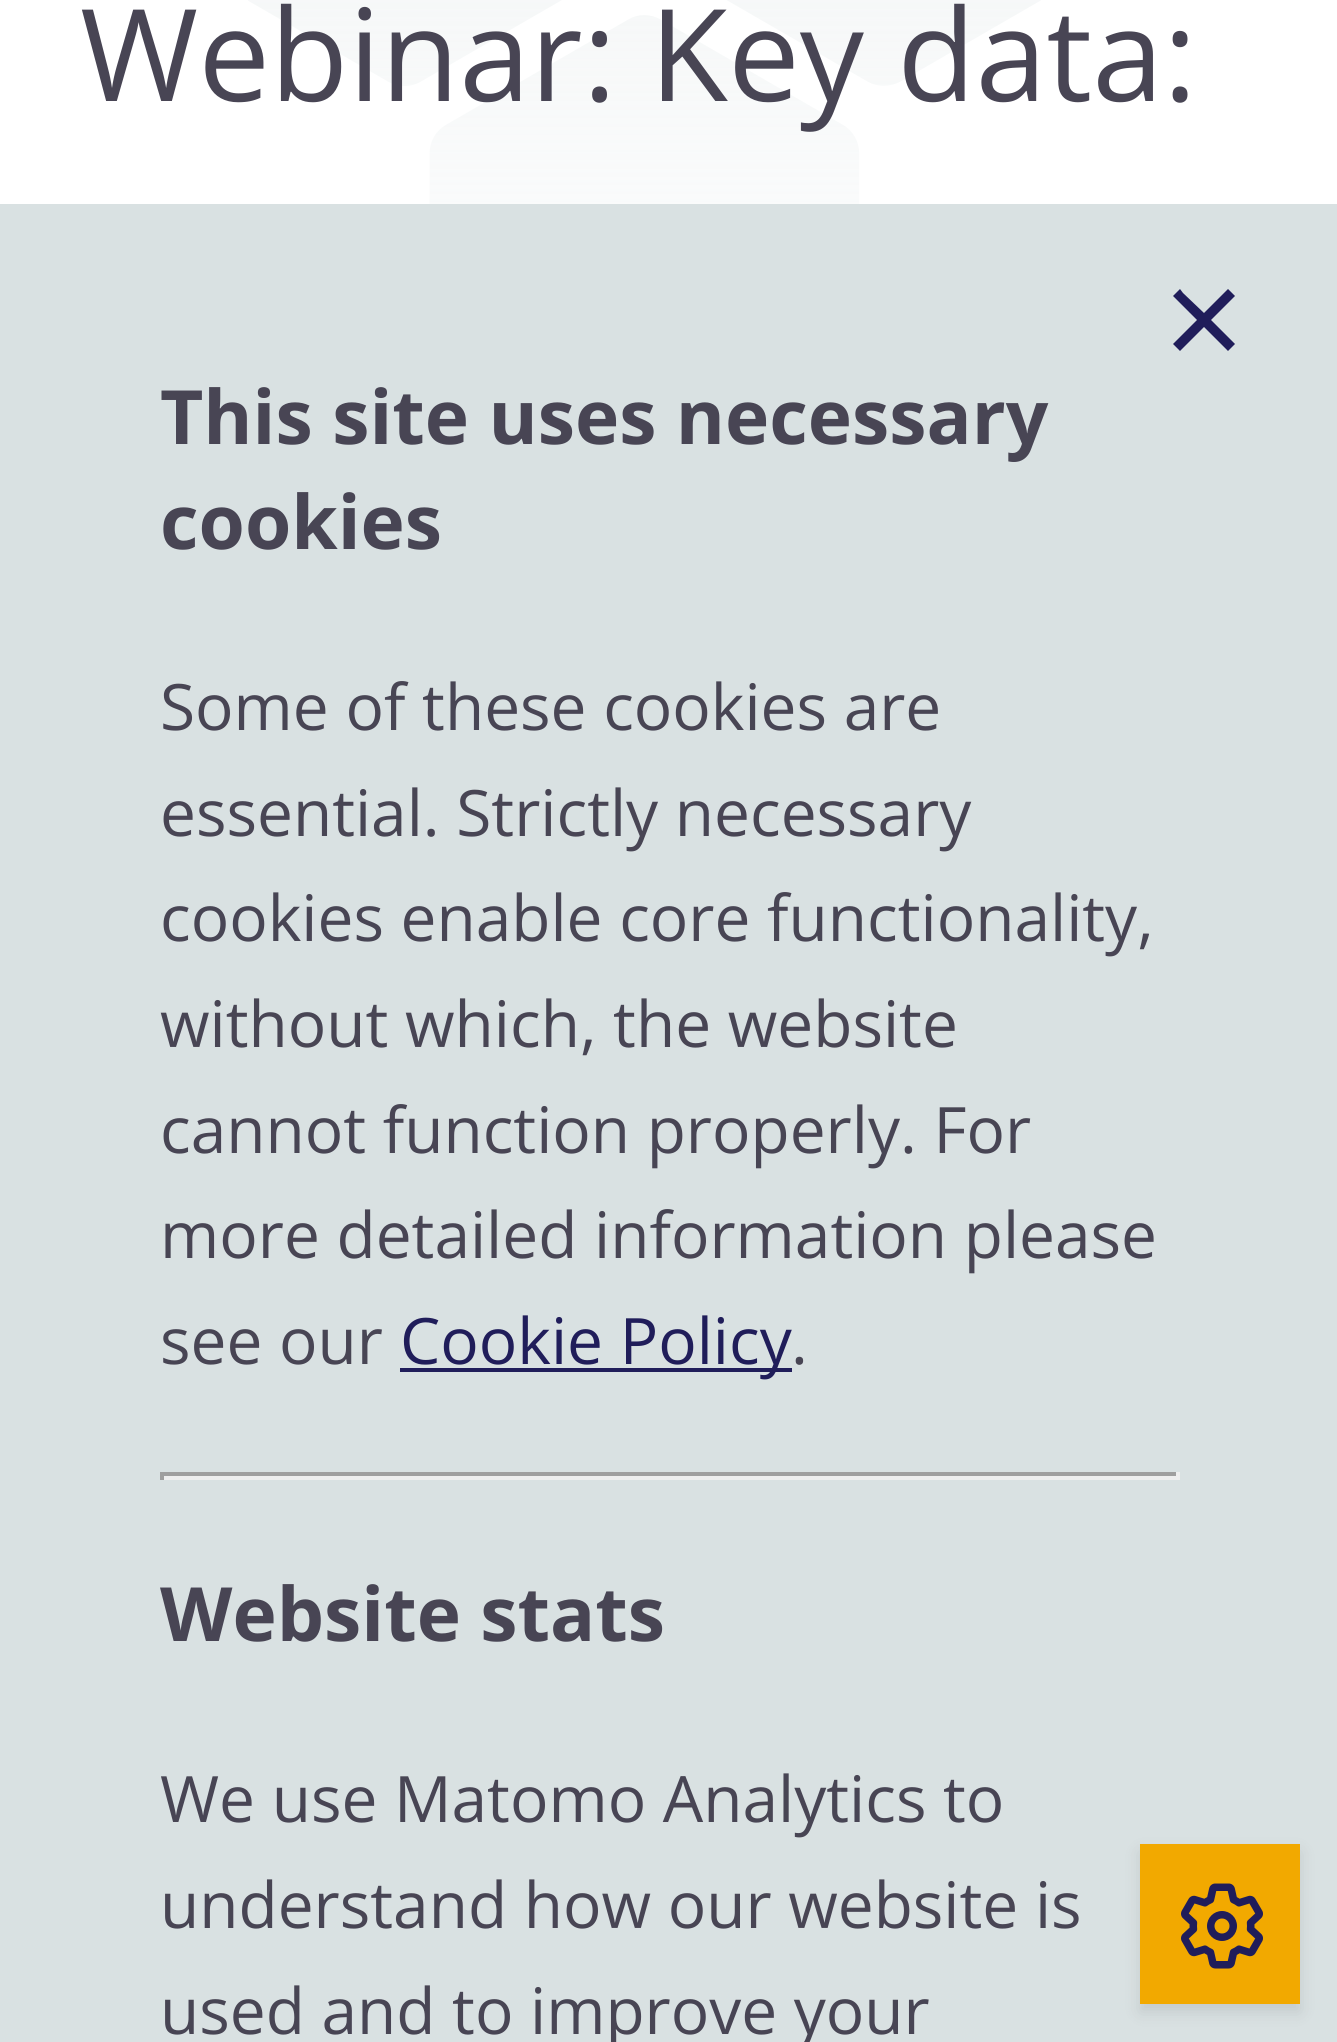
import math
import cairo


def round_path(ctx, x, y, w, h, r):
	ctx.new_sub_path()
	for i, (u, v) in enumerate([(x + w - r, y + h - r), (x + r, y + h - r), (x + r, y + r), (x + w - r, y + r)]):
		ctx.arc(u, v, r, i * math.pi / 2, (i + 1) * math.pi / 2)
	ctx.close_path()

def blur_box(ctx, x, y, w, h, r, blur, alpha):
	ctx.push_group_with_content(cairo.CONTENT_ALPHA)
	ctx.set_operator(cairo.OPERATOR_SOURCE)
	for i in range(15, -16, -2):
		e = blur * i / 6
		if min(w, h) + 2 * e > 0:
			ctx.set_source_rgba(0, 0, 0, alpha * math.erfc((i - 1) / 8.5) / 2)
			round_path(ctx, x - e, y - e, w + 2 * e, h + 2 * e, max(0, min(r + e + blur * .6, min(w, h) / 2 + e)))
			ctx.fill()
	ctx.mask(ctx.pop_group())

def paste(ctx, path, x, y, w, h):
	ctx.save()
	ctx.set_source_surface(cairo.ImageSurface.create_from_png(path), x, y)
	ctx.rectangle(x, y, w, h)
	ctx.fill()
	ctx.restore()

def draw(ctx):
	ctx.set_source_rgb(1, 1, 1)
	ctx.paint()
	paste(ctx, 'media/1.png', 248, 0, 793, 204)
	ctx.select_font_face('Open Sans')
	ctx.set_font_size(128)
	ctx.set_source_rgb(0.282, 0.271, 0.329)
	ctx.move_to(80, 101)
	ctx.show_text('Webinar: Key data:')
	ctx.set_source_rgb(0.851, 0.882, 0.886)
	ctx.rectangle(0, 204, 1337, 1838)
	ctx.fill()
	ctx.set_source_rgb(0.125, 0.114, 0.353)
	ctx.new_path()
	ctx.move_to(1183, 293)
	ctx.line_to(1180, 289)
	ctx.line_to(1173, 296)
	ctx.line_to(1197, 320)
	ctx.line_to(1173, 344)
	ctx.line_to(1180, 351)
	ctx.line_to(1204, 327)
	ctx.line_to(1228, 351)
	ctx.line_to(1235, 344)
	ctx.line_to(1211, 320)
	ctx.line_to(1235, 296)
	ctx.line_to(1228, 289)
	ctx.line_to(1204, 313)
	ctx.close_path()
	ctx.fill()
	ctx.select_font_face('Open Sans', cairo.FONT_SLANT_NORMAL, cairo.FONT_WEIGHT_BOLD)
	ctx.set_font_size(74.9)
	ctx.set_source_rgb(0.282, 0.271, 0.329)
	ctx.move_to(160, 444)
	ctx.show_text('This site uses necessary')
	ctx.move_to(160, 549)
	ctx.show_text('cookies')
	ctx.select_font_face('Open Sans')
	ctx.set_font_size(64)
	for x, y, s in [
		(160, 730, 'Some of these cookies are'),
		(160, 836, 'essential. Strictly necessary'),
		(160, 941, 'cookies enable core functionality,'),
		(160, 1047, 'without which, the website'),
		(160, 1153, 'cannot function properly. For'),
		(160, 1258, 'more detailed information please'),
		(160, 1364, 'see our'),
	]:
		ctx.move_to(x, y)
		ctx.show_text(s)
	ctx.set_source_rgb(0.125, 0.114, 0.353)
	ctx.rectangle(400, 1368, 392, 4)
	ctx.fill()
	ctx.move_to(400, 1364)
	ctx.show_text('Cookie Policy')
	ctx.set_source_rgb(0.282, 0.271, 0.329)
	ctx.move_to(791, 1364)
	ctx.show_text('.')
	ctx.set_source_rgb(0.624, 0.624, 0.624)
	ctx.rectangle(160, 1472, 1020, 4)
	ctx.fill()
	ctx.set_source_rgb(0.933, 0.933, 0.933)
	ctx.rectangle(1176, 1472, 4, 8)
	ctx.rectangle(160, 1476, 1020, 4)
	ctx.fill()
	ctx.set_source_rgb(0.624, 0.624, 0.624)
	ctx.rectangle(160, 1472, 4, 8)
	ctx.fill()
	ctx.select_font_face('Open Sans', cairo.FONT_SLANT_NORMAL, cairo.FONT_WEIGHT_BOLD)
	ctx.set_font_size(74.9)
	ctx.set_source_rgb(0.282, 0.271, 0.329)
	ctx.move_to(160, 1641)
	ctx.show_text('Website stats')
	ctx.select_font_face('Open Sans')
	ctx.set_font_size(64)
	for x, y, s in [
		(160, 1822, 'We use Matomo Analytics to'),
		(160, 1928, 'understand how our website is'),
		(160, 2034, 'used and to improve your'),
	]:
		ctx.move_to(x, y)
		ctx.show_text(s)
	ctx.set_source_rgb(0, 0, 0)
	blur_box(ctx, 1140, 1852, 160, 160, 0, 8, 0.1)
	ctx.set_source_rgb(0.949, 0.663, 0)
	ctx.rectangle(1140, 1844, 160, 160)
	ctx.fill()
	paste(ctx, 'media/2.png', 1181, 1883, 82, 86)


surface = cairo.ImageSurface(cairo.FORMAT_RGB24, 1337, 2042)
ctx = cairo.Context(surface)
options = cairo.FontOptions()
options.set_hint_metrics(cairo.HINT_METRICS_OFF)
options.set_hint_style(cairo.HINT_STYLE_NONE)
ctx.set_font_options(options)
ctx.set_miter_limit(4)
draw(ctx)
surface.write_to_png('image.png')
